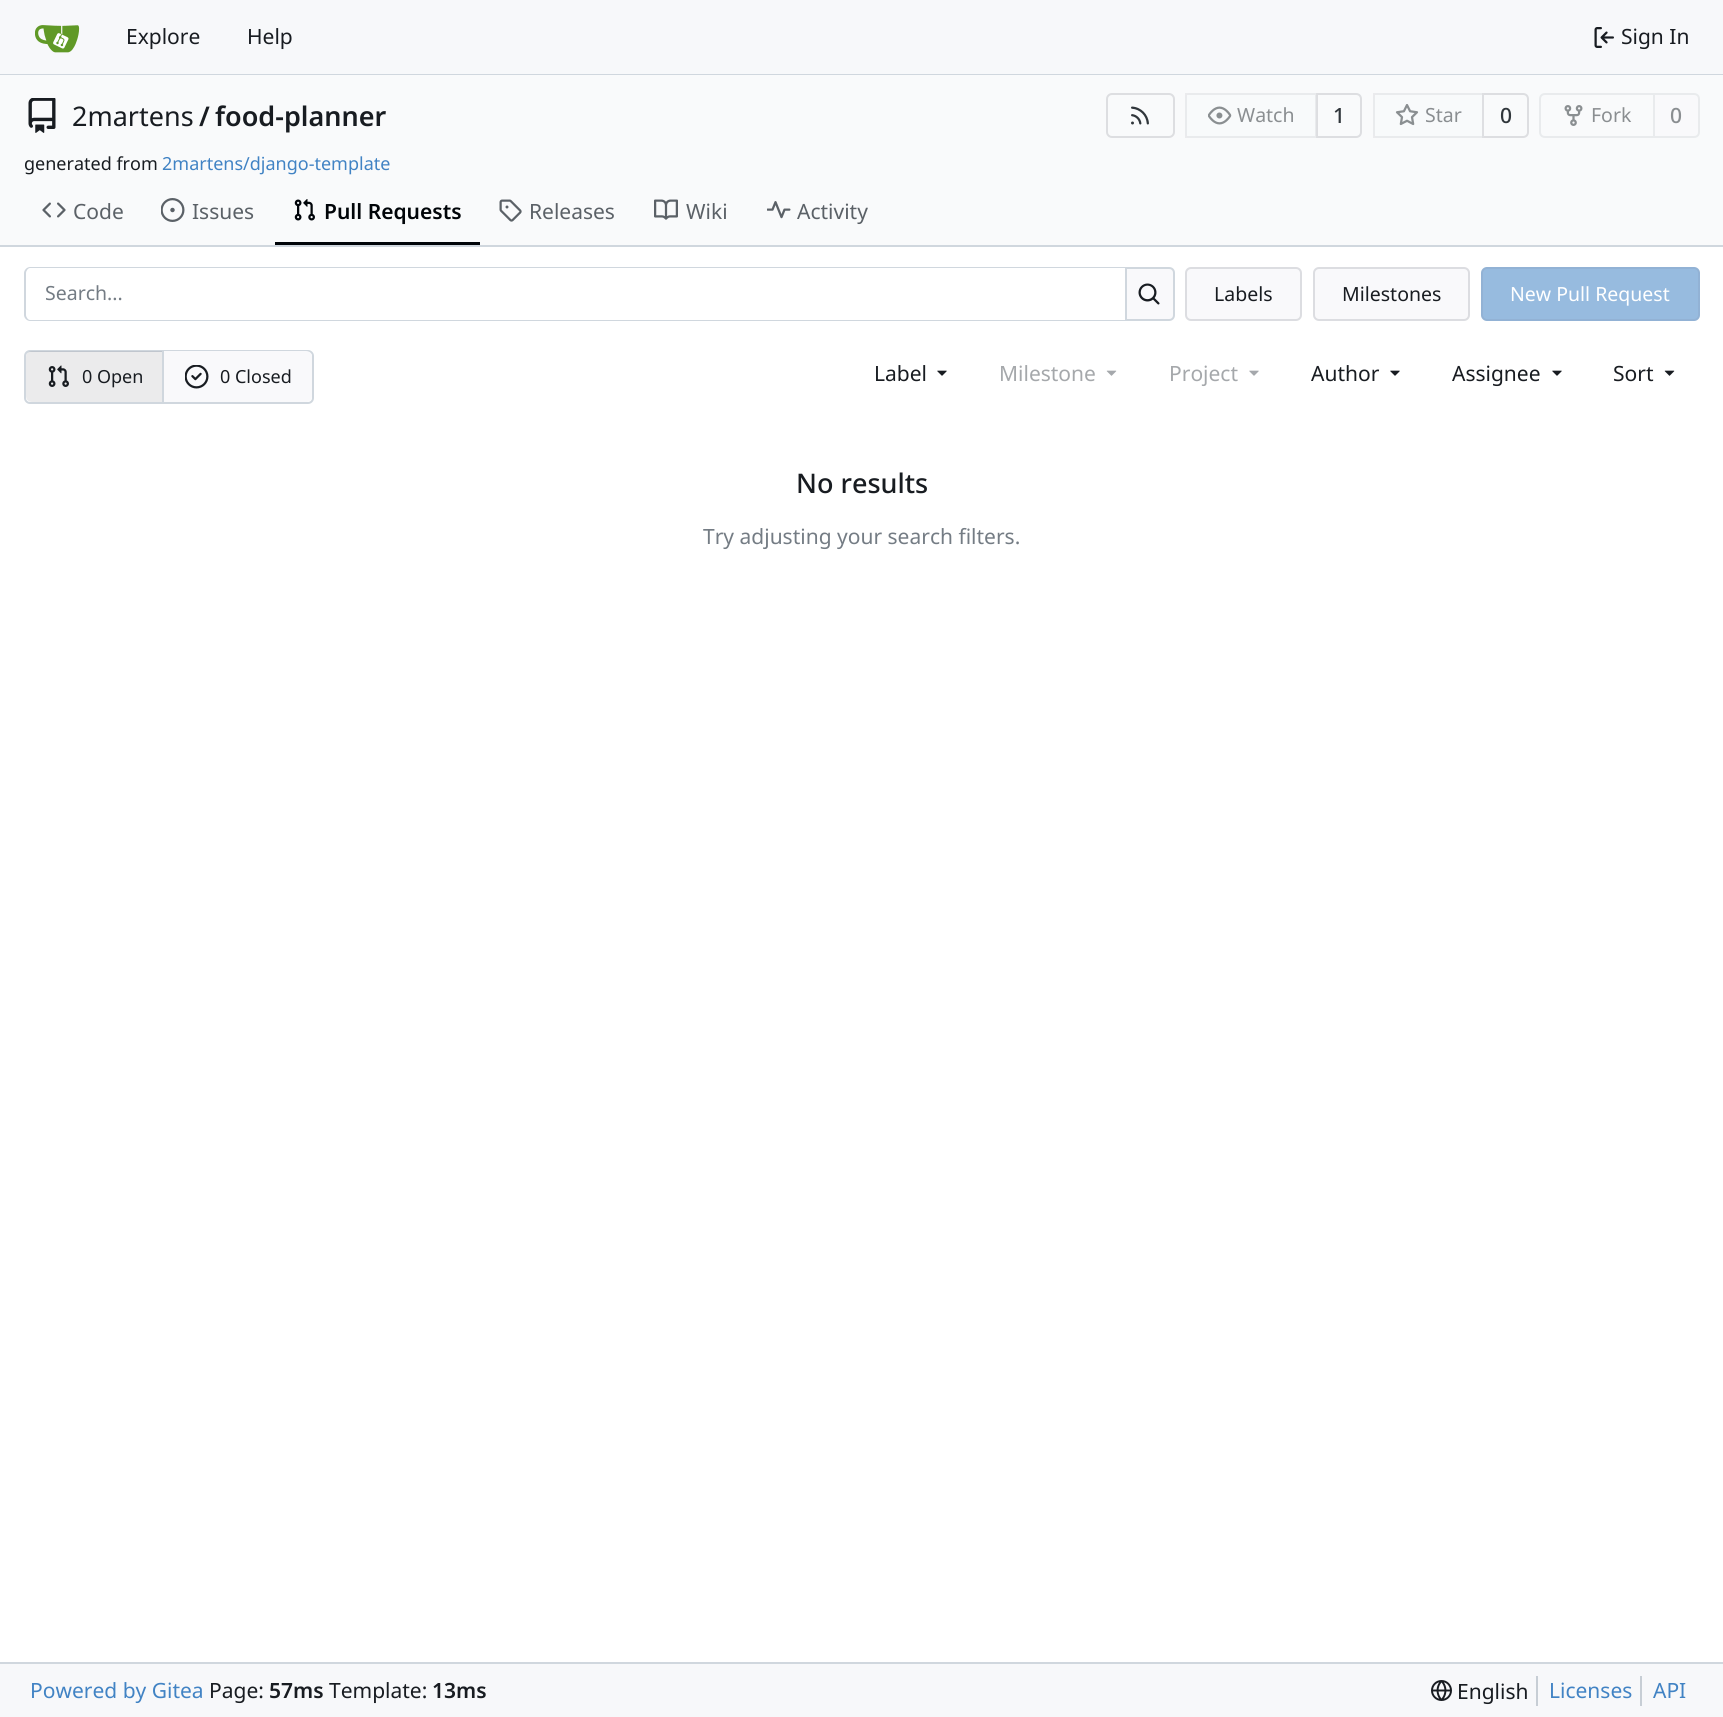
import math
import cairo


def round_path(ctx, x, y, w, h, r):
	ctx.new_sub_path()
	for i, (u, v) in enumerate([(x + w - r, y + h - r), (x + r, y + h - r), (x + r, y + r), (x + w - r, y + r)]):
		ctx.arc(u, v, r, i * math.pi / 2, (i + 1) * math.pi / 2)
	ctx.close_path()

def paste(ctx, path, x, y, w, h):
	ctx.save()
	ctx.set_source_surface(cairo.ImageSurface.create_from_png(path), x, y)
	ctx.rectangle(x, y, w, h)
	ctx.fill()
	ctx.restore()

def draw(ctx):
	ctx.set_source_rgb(1, 1, 1)
	ctx.paint()
	ctx.set_source_rgb(0.965, 0.969, 0.98)
	ctx.rectangle(0, 0, 1723, 74)
	ctx.fill()
	ctx.set_source_rgb(0.816, 0.843, 0.871)
	ctx.rectangle(0, 74, 1723, 1)
	ctx.fill()
	paste(ctx, 'media/1.png', 35, 25, 45, 28)
	ctx.select_font_face('Noto Sans')
	ctx.set_font_size(21)
	ctx.set_source_rgb(0.094, 0.11, 0.129)
	ctx.move_to(126, 44)
	ctx.show_text('Explore')
	ctx.move_to(247, 44)
	ctx.show_text('Help')
	paste(ctx, 'media/2.png', 1594, 27, 20, 21)
	ctx.move_to(1621, 44)
	ctx.show_text('Sign In')
	ctx.set_source_rgb(0.976, 0.98, 0.984)
	ctx.rectangle(0, 75, 1723, 170)
	ctx.fill()
	paste(ctx, 'media/3.png', 28, 98, 28, 35)
	ctx.set_font_size(27)
	ctx.set_source_rgb(0.094, 0.11, 0.129)
	ctx.move_to(72, 126)
	ctx.show_text('2martens')
	ctx.select_font_face('Noto Sans SemiBold')
	ctx.move_to(199, 126)
	ctx.show_text('/')
	ctx.move_to(215, 126)
	ctx.show_text('food-planner')
	round_path(ctx, 1107, 94, 67, 43, 5)
	ctx.set_source_rgb(0.867, 0.871, 0.882)
	ctx.stroke()
	paste(ctx, 'media/4.png', 1131, 106, 18, 19)
	ctx.new_path()
	ctx.move_to(1317, 94)
	ctx.line_to(1356, 94)
	ctx.curve_to(1359, 94, 1361, 96, 1361, 99)
	ctx.line_to(1361, 132)
	ctx.curve_to(1361, 135, 1359, 137, 1356, 137)
	ctx.line_to(1317, 137)
	ctx.close_path()
	ctx.stroke()
	ctx.set_source_rgba(0.973, 0.976, 0.984, 0.55)
	ctx.new_path()
	ctx.move_to(1191, 93)
	ctx.line_to(1317, 93)
	ctx.line_to(1317, 138)
	ctx.line_to(1191, 138)
	ctx.curve_to(1187.5, 138, 1185, 135.5, 1185, 132)
	ctx.line_to(1185, 99)
	ctx.curve_to(1185, 95.5, 1187.5, 93, 1191, 93)
	ctx.close_path()
	ctx.fill()
	ctx.rectangle(1186, 94, 130, 43)
	ctx.set_source_rgba(0, 0, 0.09, 0.06)
	ctx.stroke()
	paste(ctx, 'media/5.png', 1208, 106, 24, 19)
	ctx.select_font_face('Noto Sans')
	ctx.set_font_size(19.5)
	ctx.set_source_rgb(0.541, 0.557, 0.569)
	ctx.move_to(1237, 122)
	ctx.show_text('Watch')
	ctx.select_font_face('Noto Sans Medium')
	ctx.set_font_size(21)
	ctx.set_source_rgb(0.188, 0.212, 0.231)
	ctx.move_to(1333, 123)
	ctx.show_text('1')
	ctx.new_path()
	ctx.move_to(1483, 94)
	ctx.line_to(1523, 94)
	ctx.curve_to(1526, 94, 1528, 96, 1528, 99)
	ctx.line_to(1528, 132)
	ctx.curve_to(1528, 135, 1526, 137, 1523, 137)
	ctx.line_to(1483, 137)
	ctx.close_path()
	ctx.set_source_rgb(0.867, 0.871, 0.882)
	ctx.stroke()
	ctx.set_source_rgba(0.973, 0.976, 0.984, 0.55)
	ctx.new_path()
	ctx.move_to(1379, 93)
	ctx.line_to(1484, 93)
	ctx.line_to(1484, 138)
	ctx.line_to(1379, 138)
	ctx.curve_to(1375.5, 138, 1373, 135.5, 1373, 132)
	ctx.line_to(1373, 99)
	ctx.curve_to(1373, 95.5, 1375.5, 93, 1379, 93)
	ctx.close_path()
	ctx.fill()
	ctx.rectangle(1374, 94, 109, 43)
	ctx.set_source_rgba(0, 0, 0.09, 0.06)
	ctx.stroke()
	paste(ctx, 'media/6.png', 1395, 104, 24, 22)
	ctx.select_font_face('Noto Sans')
	ctx.set_font_size(19.5)
	ctx.set_source_rgb(0.541, 0.557, 0.569)
	ctx.move_to(1425, 122)
	ctx.show_text('Star')
	ctx.select_font_face('Noto Sans Medium')
	ctx.set_font_size(21)
	ctx.set_source_rgb(0.188, 0.212, 0.231)
	ctx.move_to(1500, 123)
	ctx.show_text('0')
	ctx.new_path()
	ctx.move_to(1545, 94)
	ctx.line_to(1654, 94)
	ctx.line_to(1654, 137)
	ctx.line_to(1545, 137)
	ctx.curve_to(1542, 137, 1540, 135, 1540, 132)
	ctx.line_to(1540, 99)
	ctx.curve_to(1540, 96, 1542, 94, 1545, 94)
	ctx.close_path()
	ctx.set_source_rgb(0.914, 0.918, 0.929)
	ctx.stroke()
	paste(ctx, 'media/7.png', 1564, 105, 19, 21)
	ctx.select_font_face('Noto Sans')
	ctx.set_font_size(19.5)
	ctx.set_source_rgb(0.541, 0.557, 0.569)
	ctx.move_to(1591, 122)
	ctx.show_text('Fork')
	ctx.set_source_rgb(0.973, 0.976, 0.984)
	ctx.new_path()
	ctx.move_to(1654, 94)
	ctx.line_to(1694, 94)
	ctx.curve_to(1697, 94, 1699, 96, 1699, 99)
	ctx.line_to(1699, 132)
	ctx.curve_to(1699, 135, 1697, 137, 1694, 137)
	ctx.line_to(1654, 137)
	ctx.close_path()
	ctx.fill_preserve()
	ctx.set_source_rgb(0.914, 0.918, 0.929)
	ctx.stroke()
	ctx.select_font_face('Noto Sans Medium')
	ctx.set_font_size(21)
	ctx.set_source_rgb(0.541, 0.557, 0.569)
	ctx.move_to(1670, 123)
	ctx.show_text('0')
	ctx.select_font_face('Noto Sans')
	ctx.set_font_size(18)
	ctx.set_source_rgb(0.094, 0.11, 0.129)
	ctx.move_to(24, 170)
	ctx.show_text('generated from')
	ctx.set_source_rgb(0.255, 0.514, 0.769)
	ctx.move_to(162, 170)
	ctx.show_text('2martens/django-template')
	paste(ctx, 'media/8.png', 42, 202, 24, 16)
	ctx.set_font_size(21)
	ctx.set_source_rgb(0.357, 0.38, 0.404)
	ctx.move_to(73, 219)
	ctx.show_text('Code')
	paste(ctx, 'media/9.png', 161, 198, 24, 24)
	ctx.move_to(192, 219)
	ctx.show_text('Issues')
	ctx.set_source_rgb(0.004, 0.02, 0.039)
	ctx.rectangle(275, 242, 205, 3)
	ctx.fill()
	paste(ctx, 'media/10.png', 294, 199, 21, 22)
	ctx.select_font_face('Noto Sans SemiBold')
	ctx.move_to(324, 219)
	ctx.show_text('Pull Requests')
	paste(ctx, 'media/11.png', 499, 199, 23, 23)
	ctx.select_font_face('Noto Sans')
	ctx.set_source_rgb(0.357, 0.38, 0.404)
	ctx.move_to(529, 219)
	ctx.show_text('Releases')
	paste(ctx, 'media/12.png', 654, 199, 24, 21)
	ctx.move_to(686, 219)
	ctx.show_text('Wiki')
	paste(ctx, 'media/13.png', 767, 201, 24, 18)
	ctx.move_to(797, 219)
	ctx.show_text('Activity')
	ctx.set_source_rgb(0.816, 0.843, 0.871)
	ctx.rectangle(0, 245, 1723, 2)
	ctx.fill()
	ctx.set_fill_rule(cairo.FILL_RULE_EVEN_ODD)
	ctx.new_path()
	ctx.move_to(30, 267)
	ctx.line_to(1125, 267)
	ctx.line_to(1125, 321)
	ctx.line_to(30, 321)
	ctx.curve_to(27, 321, 24, 318, 24, 315)
	ctx.line_to(24, 273)
	ctx.curve_to(24, 270, 27, 267, 30, 267)
	ctx.close_path()
	ctx.move_to(30, 268)
	ctx.line_to(1125, 268)
	ctx.line_to(1125, 320)
	ctx.line_to(30, 320)
	ctx.curve_to(28, 320, 26, 317, 26, 315)
	ctx.line_to(26, 273)
	ctx.curve_to(26, 271, 28, 268, 30, 268)
	ctx.close_path()
	ctx.fill()
	ctx.set_font_size(19.5)
	ctx.set_source_rgb(0.455, 0.486, 0.518)
	ctx.move_to(45, 300)
	ctx.show_text('Search...')
	ctx.set_source_rgb(0.973, 0.976, 0.984)
	ctx.new_path()
	ctx.move_to(1126, 268)
	ctx.line_to(1169, 268)
	ctx.curve_to(1172, 268, 1174, 270, 1174, 273)
	ctx.line_to(1174, 315)
	ctx.curve_to(1174, 318, 1172, 320, 1169, 320)
	ctx.line_to(1126, 320)
	ctx.close_path()
	ctx.fill_preserve()
	ctx.set_source_rgb(0.816, 0.843, 0.871)
	ctx.stroke()
	paste(ctx, 'media/14.png', 1138, 283, 22, 22)
	ctx.set_source_rgb(0.973, 0.976, 0.984)
	round_path(ctx, 1186, 268, 115, 52, 5)
	ctx.fill_preserve()
	ctx.set_source_rgb(0.863, 0.867, 0.882)
	ctx.stroke()
	ctx.set_source_rgb(0.094, 0.11, 0.129)
	ctx.move_to(1214, 301)
	ctx.show_text('Labels')
	ctx.set_source_rgb(0.973, 0.976, 0.984)
	round_path(ctx, 1314, 268, 155, 52, 5)
	ctx.fill_preserve()
	ctx.set_source_rgb(0.863, 0.867, 0.882)
	ctx.stroke()
	ctx.set_source_rgb(0.094, 0.11, 0.129)
	ctx.move_to(1342, 301)
	ctx.show_text('Milestones')
	ctx.set_source_rgb(0.592, 0.733, 0.875)
	round_path(ctx, 1481, 267, 219, 54, 6)
	ctx.fill()
	round_path(ctx, 1482, 268, 217, 52, 5)
	ctx.set_source_rgba(0.451, 0.451, 0.498, 0.11)
	ctx.stroke()
	ctx.set_source_rgb(1, 1, 1)
	ctx.move_to(1510, 301)
	ctx.show_text('New Pull Request')
	round_path(ctx, 25, 351, 288, 52, 5)
	ctx.set_source_rgb(0.816, 0.843, 0.871)
	ctx.stroke()
	ctx.set_source_rgba(0, 0, 0.09, 0.08)
	ctx.new_path()
	ctx.move_to(32, 351)
	ctx.line_to(164, 351)
	ctx.line_to(164, 402)
	ctx.line_to(32, 402)
	ctx.curve_to(28.5, 402, 26, 399.5, 26, 396)
	ctx.line_to(26, 357)
	ctx.curve_to(26, 353.5, 28.5, 351, 32, 351)
	ctx.close_path()
	ctx.fill()
	paste(ctx, 'media/15.png', 48, 365, 21, 22)
	ctx.set_font_size(18)
	ctx.set_source_rgb(0.094, 0.11, 0.129)
	ctx.move_to(82, 383)
	ctx.show_text('0 Open')
	ctx.set_source_rgb(0.816, 0.843, 0.871)
	ctx.rectangle(162, 351, 2, 51)
	ctx.fill()
	ctx.set_source_rgb(0.973, 0.976, 0.984)
	ctx.new_path()
	ctx.move_to(164, 351)
	ctx.line_to(306, 351)
	ctx.curve_to(309.5, 351, 312, 353.5, 312, 357)
	ctx.line_to(312, 396)
	ctx.curve_to(312, 399.5, 309.5, 402, 306, 402)
	ctx.line_to(164, 402)
	ctx.close_path()
	ctx.fill()
	paste(ctx, 'media/16.png', 185, 365, 24, 24)
	ctx.set_source_rgb(0.094, 0.11, 0.129)
	ctx.move_to(220, 383)
	ctx.show_text('0 Closed')
	ctx.set_font_size(21)
	ctx.move_to(874, 381)
	ctx.show_text('Label')
	paste(ctx, 'media/17.png', 937, 370, 10, 6)
	ctx.set_source_rgb(0.647, 0.659, 0.671)
	ctx.move_to(999, 381)
	ctx.show_text('Milestone')
	paste(ctx, 'media/18.png', 1106, 370, 11, 6)
	ctx.move_to(1169, 381)
	ctx.show_text('Project')
	paste(ctx, 'media/19.png', 1249, 370, 10, 6)
	ctx.set_source_rgb(0.094, 0.11, 0.129)
	ctx.move_to(1311, 381)
	ctx.show_text('Author')
	paste(ctx, 'media/17.png', 1390, 370, 10, 6)
	ctx.move_to(1452, 381)
	ctx.show_text('Assignee')
	paste(ctx, 'media/17.png', 1552, 370, 10, 6)
	ctx.move_to(1613, 381)
	ctx.show_text('Sort')
	paste(ctx, 'media/20.png', 1664, 370, 11, 6)
	ctx.select_font_face('Noto Sans Medium')
	ctx.set_font_size(27)
	ctx.move_to(796, 493)
	ctx.show_text('No results')
	ctx.select_font_face('Noto Sans')
	ctx.set_font_size(21)
	ctx.set_source_rgb(0.455, 0.486, 0.518)
	ctx.move_to(703, 544)
	ctx.show_text('Try adjusting your search filters.')
	ctx.set_source_rgb(0.965, 0.969, 0.98)
	ctx.rectangle(0, 1664, 1723, 53)
	ctx.fill()
	ctx.set_source_rgb(0.816, 0.843, 0.871)
	ctx.rectangle(0, 1662, 1723, 2)
	ctx.fill()
	ctx.set_source_rgb(0.255, 0.514, 0.769)
	ctx.move_to(30, 1698)
	ctx.show_text('Powered by Gitea')
	ctx.set_source_rgb(0.094, 0.11, 0.129)
	ctx.move_to(209, 1698)
	ctx.show_text('Page:')
	ctx.select_font_face('Noto Sans SemiBold')
	ctx.move_to(269, 1698)
	ctx.show_text('57ms')
	ctx.select_font_face('Noto Sans')
	ctx.move_to(329, 1698)
	ctx.show_text('Template:')
	ctx.select_font_face('Noto Sans SemiBold')
	ctx.move_to(432, 1698)
	ctx.show_text('13ms')
	paste(ctx, 'media/21.png', 1431, 1680, 21, 21)
	ctx.select_font_face('Noto Sans')
	ctx.move_to(1457, 1699)
	ctx.show_text('English')
	ctx.set_source_rgb(0.78, 0.808, 0.835)
	ctx.rectangle(1536, 1676, 2, 30)
	ctx.fill()
	ctx.set_source_rgb(0.255, 0.514, 0.769)
	ctx.move_to(1549, 1698)
	ctx.show_text('Licenses')
	ctx.set_source_rgb(0.78, 0.808, 0.835)
	ctx.rectangle(1640, 1676, 2, 30)
	ctx.fill()
	ctx.set_source_rgb(0.255, 0.514, 0.769)
	ctx.move_to(1653, 1698)
	ctx.show_text('API')


surface = cairo.ImageSurface(cairo.FORMAT_RGB24, 1723, 1717)
ctx = cairo.Context(surface)
options = cairo.FontOptions()
options.set_hint_metrics(cairo.HINT_METRICS_OFF)
options.set_hint_style(cairo.HINT_STYLE_NONE)
ctx.set_font_options(options)
ctx.set_miter_limit(4)
draw(ctx)
surface.write_to_png('image.png')
